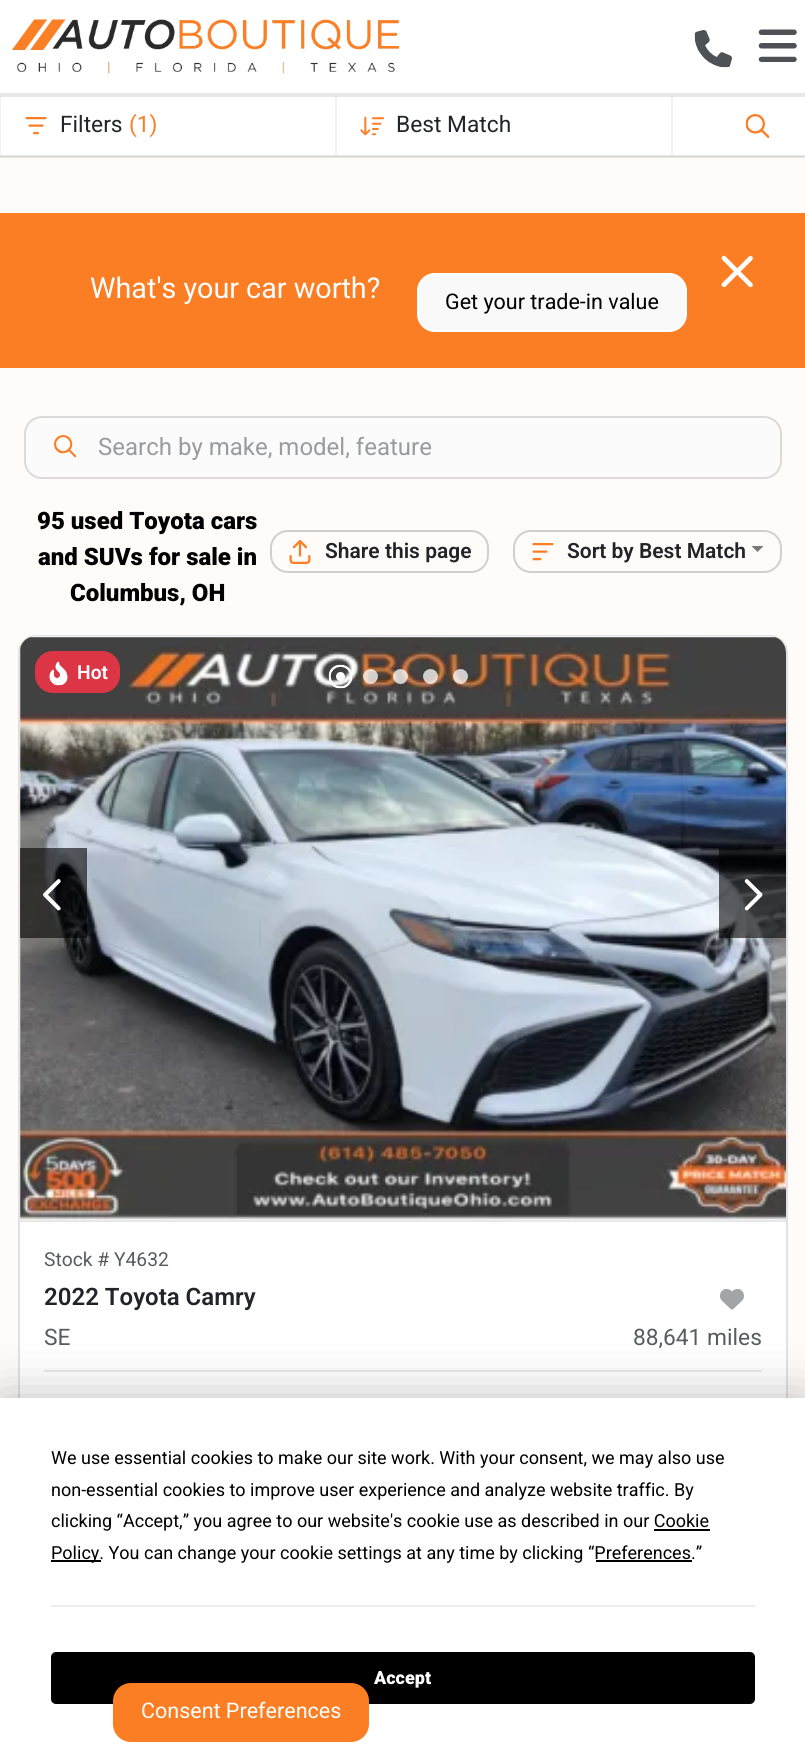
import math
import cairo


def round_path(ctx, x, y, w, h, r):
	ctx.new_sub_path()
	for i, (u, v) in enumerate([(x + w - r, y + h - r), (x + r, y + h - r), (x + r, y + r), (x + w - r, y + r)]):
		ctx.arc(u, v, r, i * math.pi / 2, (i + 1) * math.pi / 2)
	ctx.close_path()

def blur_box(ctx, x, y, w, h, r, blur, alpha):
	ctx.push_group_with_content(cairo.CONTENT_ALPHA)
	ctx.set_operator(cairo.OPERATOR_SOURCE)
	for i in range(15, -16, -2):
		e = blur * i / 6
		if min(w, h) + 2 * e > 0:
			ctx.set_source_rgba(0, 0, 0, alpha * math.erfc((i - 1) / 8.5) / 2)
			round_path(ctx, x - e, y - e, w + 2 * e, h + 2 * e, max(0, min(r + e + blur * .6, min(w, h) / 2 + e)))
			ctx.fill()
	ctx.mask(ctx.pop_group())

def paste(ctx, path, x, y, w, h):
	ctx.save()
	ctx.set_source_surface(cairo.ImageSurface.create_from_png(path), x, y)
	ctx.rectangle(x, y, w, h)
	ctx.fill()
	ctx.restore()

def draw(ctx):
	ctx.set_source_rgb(1, 0.984, 0.973)
	ctx.paint()
	ctx.set_source_rgb(1, 1, 1)
	ctx.rectangle(0, 0, 805, 93)
	ctx.fill()
	ctx.set_source_rgb(0.91, 0.91, 0.914)
	ctx.rectangle(0, 93, 805, 2)
	ctx.fill()
	paste(ctx, 'media/1.png', 12, 19, 387, 55)
	paste(ctx, 'media/2.png', 694, 30, 38, 38)
	paste(ctx, 'media/3.png', 758, 29, 39, 33)
	ctx.set_source_rgb(1, 1, 1)
	ctx.rectangle(1, 97, 804, 58)
	ctx.fill()
	ctx.set_source_rgb(0.945, 0.945, 0.949)
	ctx.rectangle(671, 96, 2, 59)
	ctx.rectangle(335, 96, 2, 59)
	ctx.rectangle(0, 96, 1, 59)
	ctx.fill()
	ctx.set_source_rgb(0.91, 0.91, 0.914)
	ctx.rectangle(0, 155, 805, 1)
	ctx.rectangle(0, 157, 805, 1)
	ctx.fill()
	ctx.set_source_rgb(0.827, 0.831, 0.835)
	ctx.rectangle(0, 156, 805, 1)
	ctx.fill()
	ctx.set_source_rgb(0.91, 0.91, 0.914)
	ctx.rectangle(0, 95, 805, 2)
	ctx.fill()
	ctx.set_source_rgb(0.863, 0.863, 0.867)
	ctx.rectangle(671, 96, 2, 1)
	ctx.rectangle(335, 96, 2, 1)
	ctx.rectangle(0, 96, 1, 1)
	ctx.fill()
	paste(ctx, 'media/4.png', 25, 117, 22, 18)
	ctx.select_font_face('Roboto')
	ctx.set_font_size(22.75)
	ctx.set_source_rgb(0.129, 0.145, 0.161)
	ctx.move_to(60, 132)
	ctx.show_text('Filters')
	ctx.set_source_rgb(0.984, 0.494, 0.141)
	ctx.move_to(129, 132)
	ctx.show_text('(1)')
	paste(ctx, 'media/5.png', 360, 116, 24, 20)
	ctx.set_source_rgb(0.129, 0.145, 0.161)
	ctx.move_to(396, 132)
	ctx.show_text('Best Match')
	paste(ctx, 'media/6.png', 745, 114, 25, 24)
	ctx.set_source_rgb(0.984, 0.494, 0.141)
	ctx.rectangle(0, 213, 805, 155)
	ctx.fill()
	ctx.set_font_size(28.75)
	ctx.set_source_rgb(1, 1, 1)
	ctx.move_to(90, 298)
	ctx.show_text('What\'s your car worth?')
	ctx.set_source_rgb(0.973, 0.976, 0.98)
	round_path(ctx, 418, 274, 268, 57, 17)
	ctx.fill_preserve()
	ctx.set_source_rgb(1, 1, 1)
	ctx.stroke()
	ctx.set_font_size(21.5)
	ctx.set_source_rgb(0, 0, 0)
	ctx.move_to(445, 309)
	ctx.show_text('Get your trade-in value')
	paste(ctx, 'media/7.png', 721, 255, 32, 33)
	ctx.set_source_rgb(0.984, 0.984, 0.984)
	round_path(ctx, 26, 417, 754, 60, 17)
	ctx.fill()
	round_path(ctx, 25, 417, 756, 61, 17)
	ctx.set_source_rgba(0.094, 0.11, 0.129, 0.15)
	ctx.stroke()
	paste(ctx, 'media/8.png', 54, 435, 23, 23)
	ctx.set_font_size(24)
	ctx.set_source_rgb(0.6, 0.608, 0.616)
	ctx.move_to(98, 455)
	ctx.show_text('Search by make, model, feature')
	ctx.select_font_face('Roboto Black')
	ctx.set_source_rgb(0, 0, 0)
	for x, y, s in [
		(37, 529, '95 used Toyota cars'),
		(38, 565, 'and SUVs for sale in'),
		(70, 601, 'Columbus, OH'),
	]:
		ctx.move_to(x, y)
		ctx.show_text(s)
	round_path(ctx, 271, 531, 217, 41, 17)
	ctx.set_source_rgb(0.82, 0.808, 0.804)
	ctx.stroke()
	paste(ctx, 'media/9.png', 289, 540, 22, 24)
	ctx.select_font_face('Roboto SemiBold')
	ctx.set_font_size(21)
	ctx.set_source_rgb(0.129, 0.145, 0.161)
	ctx.move_to(325, 558)
	ctx.show_text('Share this page')
	round_path(ctx, 514, 531, 267, 41, 17)
	ctx.set_source_rgb(0.82, 0.808, 0.804)
	ctx.stroke()
	paste(ctx, 'media/10.png', 532, 543, 22, 18)
	ctx.set_source_rgb(0.129, 0.145, 0.161)
	ctx.move_to(567, 558)
	ctx.show_text('Sort by Best Match')
	ctx.set_source_rgb(0.467, 0.467, 0.467)
	ctx.new_path()
	ctx.move_to(751.5, 546)
	ctx.line_to(763.5, 546)
	ctx.line_to(757.5, 552)
	ctx.close_path()
	ctx.fill()
	ctx.set_source_rgb(1, 1, 1)
	round_path(ctx, 19, 636, 768, 1013, 17)
	ctx.fill_preserve()
	ctx.set_source_rgb(0.882, 0.882, 0.882)
	ctx.stroke()
	ctx.set_source_rgb(0.91, 0.91, 0.914)
	ctx.rectangle(20, 1220, 766, 2)
	ctx.fill()
	ctx.set_source_rgb(0.957, 0.961, 0.969)
	ctx.new_path()
	ctx.move_to(37, 636)
	ctx.line_to(769, 636)
	ctx.curve_to(778.5, 636, 786, 643.5, 786, 653)
	ctx.line_to(786, 1220)
	ctx.line_to(20, 1220)
	ctx.line_to(20, 653)
	ctx.curve_to(20, 643.5, 27.5, 636, 37, 636)
	ctx.close_path()
	ctx.fill()
	paste(ctx, 'media/11.png', 20, 637, 766, 583)
	paste(ctx, 'media/12.png', 328, 664, 25, 25)
	paste(ctx, 'media/13.png', 363, 669, 15, 15)
	paste(ctx, 'media/14.png', 393, 669, 15, 15)
	paste(ctx, 'media/15.png', 423, 669, 15, 15)
	paste(ctx, 'media/16.png', 453, 669, 15, 15)
	ctx.set_source_rgba(0, 0, 0, 0.6)
	ctx.rectangle(20, 848, 67, 90)
	ctx.fill()
	paste(ctx, 'media/17.png', 43, 879, 18, 32)
	ctx.rectangle(719, 848, 67, 90)
	ctx.fill()
	paste(ctx, 'media/18.png', 744, 879, 19, 32)
	ctx.set_source_rgb(0.863, 0.208, 0.271)
	round_path(ctx, 35, 651, 85, 42, 18)
	ctx.fill()
	paste(ctx, 'media/19.png', 49, 661, 19, 25)
	ctx.set_font_size(19.25)
	ctx.set_source_rgb(1, 1, 1)
	ctx.move_to(77, 679)
	ctx.show_text('Hot')
	ctx.select_font_face('Roboto')
	ctx.set_source_rgb(0.349, 0.361, 0.373)
	ctx.move_to(44, 1266)
	ctx.show_text('Stock # Y4632')
	ctx.select_font_face('Roboto SemiBold')
	ctx.set_font_size(24)
	ctx.set_source_rgb(0.129, 0.145, 0.161)
	ctx.move_to(44, 1305)
	ctx.show_text('2022 Toyota Camry')
	paste(ctx, 'media/20.png', 720, 1289, 24, 21)
	ctx.select_font_face('Roboto')
	ctx.set_font_size(22.75)
	ctx.set_source_rgb(0.349, 0.361, 0.373)
	ctx.move_to(44, 1345)
	ctx.show_text('SE')
	ctx.move_to(633, 1345)
	ctx.show_text('88,641 miles')
	ctx.set_source_rgb(0.91, 0.91, 0.914)
	ctx.rectangle(44, 1370, 718, 2)
	ctx.fill()
	ctx.set_source_rgb(0, 0, 0)
	blur_box(ctx, 0, 1398, 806, 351, 0, 26, 0.25)
	ctx.set_source_rgb(1, 1, 1)
	ctx.rectangle(0, 1398, 805, 350)
	ctx.fill()
	ctx.set_font_size(18)
	ctx.set_source_rgb(0, 0, 0)
	for x, y, s in [
		(51, 1464, 'We use essential cookies to make our site work. With your consent, we may also use'),
		(51, 1496, 'non-essential cookies to improve user experience and analyze website traffic. By'),
		(51, 1527, 'clicking “Accept,” you agree to our website\'s cookie use as described in our Cookie'),
	]:
		ctx.move_to(x, y)
		ctx.show_text(s)
	ctx.rectangle(51, 1560, 50, 2)
	ctx.fill()
	ctx.move_to(51, 1559)
	ctx.show_text('Policy. You can change your cookie settings at any time by clicking “Preferences.”')
	ctx.rectangle(654, 1529, 56, 2)
	ctx.rectangle(596, 1560, 96, 2)
	ctx.fill()
	ctx.set_source_rgb(0.929, 0.929, 0.937)
	ctx.rectangle(51, 1605, 704, 2)
	ctx.fill()
	ctx.set_source_rgb(0, 0, 0)
	round_path(ctx, 52, 1653, 702, 50, 4)
	ctx.fill_preserve()
	ctx.stroke()
	ctx.select_font_face('Roboto Black')
	ctx.set_source_rgb(1, 1, 1)
	ctx.move_to(374, 1684)
	ctx.show_text('Accept')
	ctx.set_source_rgb(0.984, 0.494, 0.141)
	round_path(ctx, 114, 1684, 254, 57, 17)
	ctx.fill_preserve()
	ctx.stroke()
	ctx.select_font_face('Roboto')
	ctx.set_font_size(21.5)
	ctx.set_source_rgb(1, 1, 1)
	ctx.move_to(141, 1718)
	ctx.show_text('Consent Preferences')


surface = cairo.ImageSurface(cairo.FORMAT_RGB24, 805, 1748)
ctx = cairo.Context(surface)
options = cairo.FontOptions()
options.set_hint_metrics(cairo.HINT_METRICS_OFF)
options.set_hint_style(cairo.HINT_STYLE_NONE)
ctx.set_font_options(options)
ctx.set_miter_limit(4)
draw(ctx)
surface.write_to_png('image.png')
